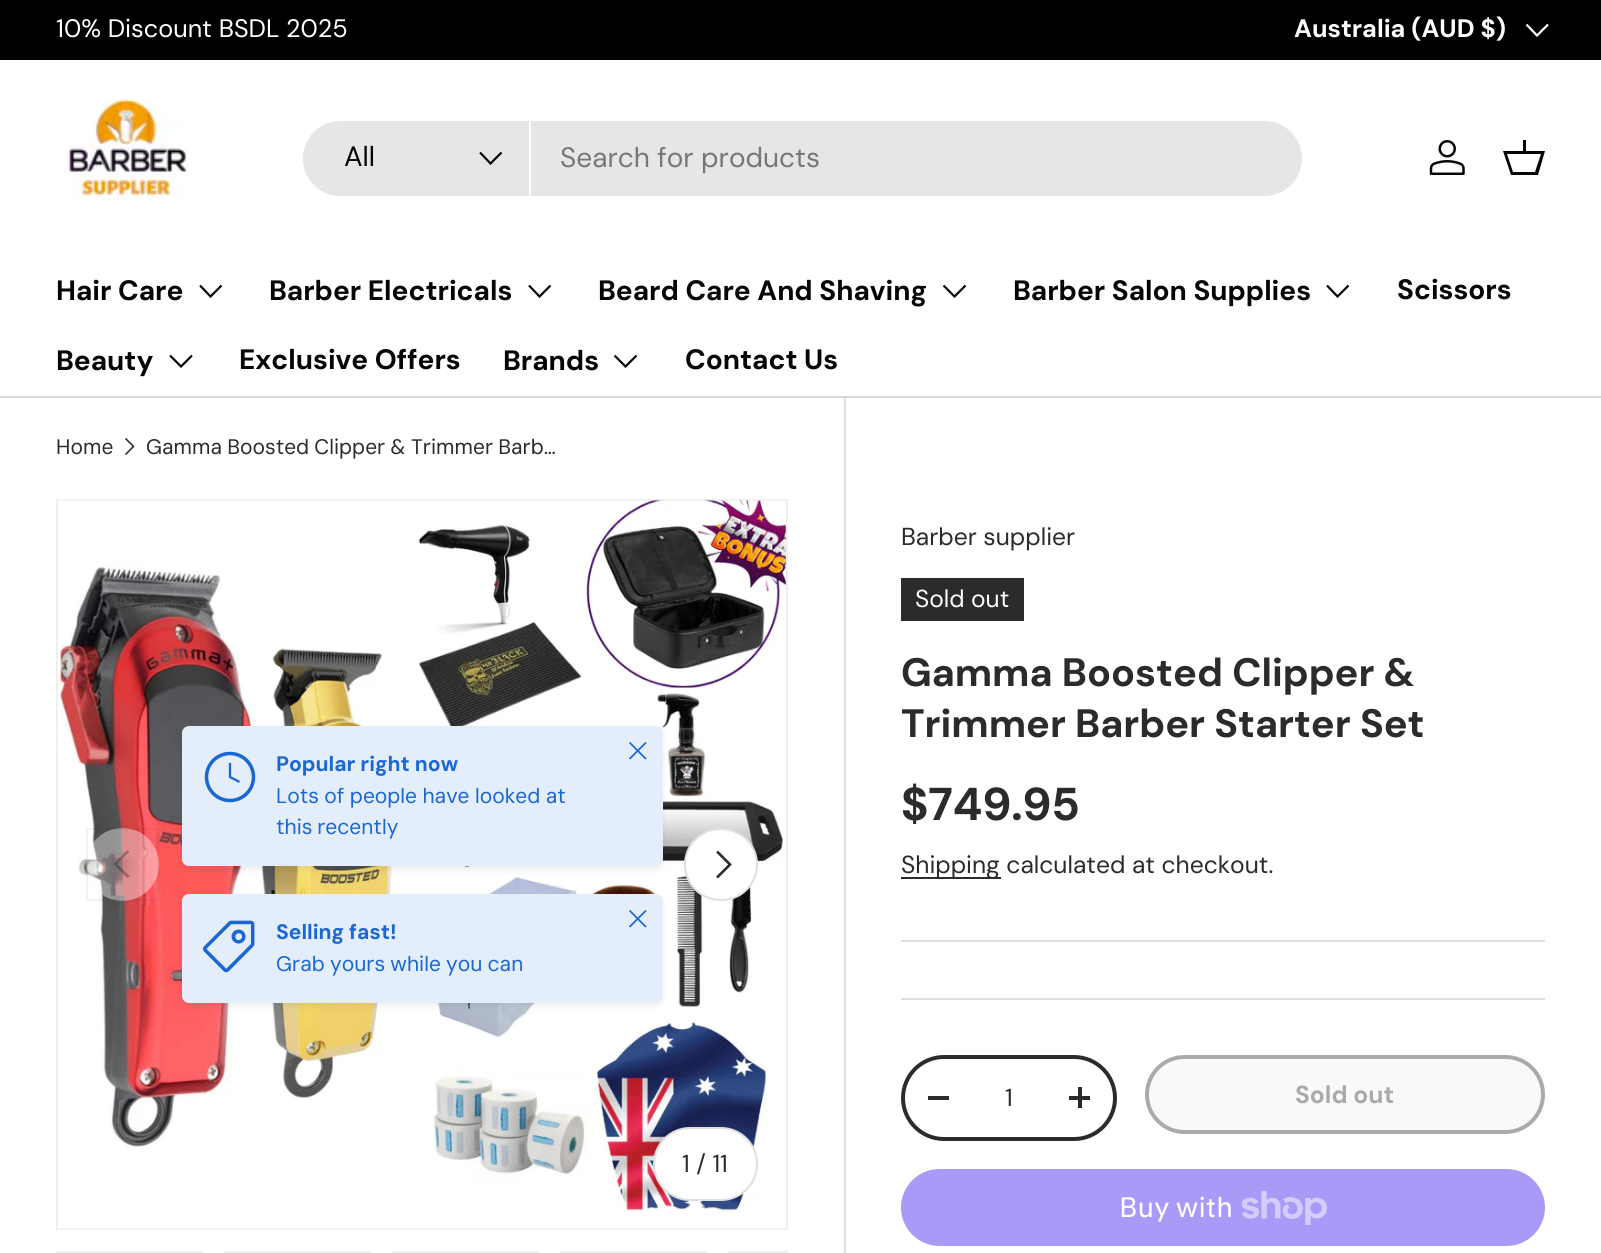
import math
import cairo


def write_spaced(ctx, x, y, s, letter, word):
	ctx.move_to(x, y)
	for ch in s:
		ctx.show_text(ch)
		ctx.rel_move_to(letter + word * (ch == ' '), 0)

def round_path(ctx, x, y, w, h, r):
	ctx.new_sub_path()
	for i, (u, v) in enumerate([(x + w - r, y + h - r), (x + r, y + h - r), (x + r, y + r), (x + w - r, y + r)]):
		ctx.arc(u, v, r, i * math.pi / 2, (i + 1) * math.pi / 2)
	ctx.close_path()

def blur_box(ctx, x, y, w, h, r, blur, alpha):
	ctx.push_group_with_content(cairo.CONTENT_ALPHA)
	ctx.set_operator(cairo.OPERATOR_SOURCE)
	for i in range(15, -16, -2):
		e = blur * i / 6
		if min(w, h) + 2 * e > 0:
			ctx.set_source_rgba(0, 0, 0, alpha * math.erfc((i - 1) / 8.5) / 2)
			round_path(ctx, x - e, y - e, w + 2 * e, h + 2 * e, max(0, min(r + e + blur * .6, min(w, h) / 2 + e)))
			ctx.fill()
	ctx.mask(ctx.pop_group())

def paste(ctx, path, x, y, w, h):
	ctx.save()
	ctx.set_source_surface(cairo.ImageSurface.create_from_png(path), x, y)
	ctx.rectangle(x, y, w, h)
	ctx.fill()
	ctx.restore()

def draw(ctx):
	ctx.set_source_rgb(1, 1, 1)
	ctx.paint()
	ctx.set_source_rgb(0.855, 0.855, 0.855)
	ctx.rectangle(0, 396, 1601, 2)
	ctx.fill()
	ctx.set_source_rgb(0, 0, 0)
	ctx.rectangle(0, 0, 1601, 60)
	ctx.fill()
	ctx.select_font_face('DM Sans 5')
	ctx.set_font_size(25.25)
	ctx.set_source_rgb(1, 1, 1)
	ctx.move_to(56, 37)
	ctx.show_text('10% Discount BSDL 2025')
	ctx.select_font_face('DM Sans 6', cairo.FONT_SLANT_NORMAL, cairo.FONT_WEIGHT_BOLD)
	ctx.move_to(1294, 37)
	ctx.show_text('Australia (AUD $)')
	ctx.new_path()
	ctx.move_to(1548, 24.5)
	ctx.line_to(1537, 35.5)
	ctx.line_to(1526.5, 24.5)
	ctx.set_line_width(2.2)
	ctx.stroke()
	paste(ctx, 'media/1.png', 68, 99, 121, 101)
	ctx.set_source_rgb(0.902, 0.902, 0.902)
	round_path(ctx, 303, 121, 999, 75, 37.5)
	ctx.fill()
	ctx.new_path()
	ctx.move_to(340.5, 121)
	ctx.line_to(530, 121)
	ctx.line_to(530, 196)
	ctx.line_to(340.5, 196)
	ctx.curve_to(320, 196, 303, 179, 303, 158.5)
	ctx.curve_to(303, 138, 320, 121, 340.5, 121)
	ctx.close_path()
	ctx.fill()
	ctx.set_source_rgb(1, 1, 1)
	ctx.rectangle(529, 121, 2, 75)
	ctx.fill()
	ctx.select_font_face('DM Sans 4')
	ctx.set_font_size(28)
	ctx.set_source_rgb(0.027, 0.027, 0.027)
	ctx.move_to(344, 166)
	ctx.show_text('All')
	ctx.new_path()
	ctx.move_to(501.5, 152.5)
	ctx.line_to(490.5, 163.5)
	ctx.line_to(480, 152.5)
	ctx.stroke()
	ctx.set_source_rgb(0.467, 0.467, 0.467)
	ctx.move_to(560, 167)
	ctx.show_text('Search for products')
	paste(ctx, 'media/2.png', 1429, 140, 36, 35)
	ctx.set_source_rgb(0.027, 0.027, 0.027)
	ctx.new_path()
	ctx.move_to(1523, 151)
	ctx.line_to(1523, 140)
	ctx.line_to(1526, 140)
	ctx.line_to(1526, 151)
	ctx.line_to(1545, 151)
	ctx.line_to(1538, 175)
	ctx.line_to(1511, 175)
	ctx.line_to(1503, 151)
	ctx.close_path()
	ctx.move_to(1507, 154)
	ctx.line_to(1513, 172)
	ctx.line_to(1535, 172)
	ctx.line_to(1541, 154)
	ctx.close_path()
	ctx.fill()
	ctx.select_font_face('DM Sans 5', cairo.FONT_SLANT_NORMAL, cairo.FONT_WEIGHT_BOLD)
	ctx.move_to(56, 300)
	ctx.show_text('Hair Care')
	ctx.new_path()
	ctx.move_to(221.5, 285.5)
	ctx.line_to(210.5, 296.5)
	ctx.line_to(200, 285.5)
	ctx.stroke()
	ctx.move_to(269, 300)
	ctx.show_text('Barber Electricals')
	ctx.new_path()
	ctx.move_to(550.5, 285.5)
	ctx.line_to(539.5, 296.5)
	ctx.line_to(529, 285.5)
	ctx.stroke()
	ctx.move_to(598, 300)
	ctx.show_text('Beard Care And Shaving')
	ctx.new_path()
	ctx.move_to(965.5, 285.5)
	ctx.line_to(954.5, 296.5)
	ctx.line_to(943.5, 285.5)
	ctx.stroke()
	ctx.move_to(1013, 300)
	ctx.show_text('Barber Salon Supplies')
	ctx.new_path()
	ctx.move_to(1348.5, 285.5)
	ctx.line_to(1337.5, 296.5)
	ctx.line_to(1327, 285.5)
	ctx.stroke()
	ctx.move_to(1397, 299)
	ctx.show_text('Scissors')
	ctx.move_to(56, 370)
	ctx.show_text('Beauty')
	ctx.new_path()
	ctx.move_to(192, 355.5)
	ctx.line_to(181, 366.5)
	ctx.line_to(170, 355.5)
	ctx.stroke()
	ctx.move_to(239, 369)
	ctx.show_text('Exclusive Offers')
	ctx.move_to(503, 370)
	ctx.show_text('Brands')
	ctx.new_path()
	ctx.move_to(636.5, 355.5)
	ctx.line_to(625.5, 366.5)
	ctx.line_to(614.5, 355.5)
	ctx.stroke()
	ctx.move_to(685, 369)
	ctx.show_text('Contact Us')
	ctx.select_font_face('DM Sans')
	ctx.set_font_size(21)
	ctx.set_source_rgb(0.165, 0.169, 0.165)
	ctx.move_to(56, 454)
	ctx.show_text('Home')
	ctx.new_path()
	ctx.move_to(125.5, 438.5)
	ctx.line_to(133.5, 446.5)
	ctx.line_to(125.5, 454.5)
	ctx.set_line_width(1.6)
	ctx.stroke()
	write_spaced(ctx, 146, 454, 'Gamma Boosted Clipper & Trimmer Barb…', 0, -0.5)
	ctx.rectangle(57, 500, 730, 729)
	ctx.set_source_rgb(0.933, 0.933, 0.933)
	ctx.set_line_width(2)
	ctx.stroke()
	paste(ctx, 'media/3.png', 57, 500, 729, 729)
	ctx.set_source_rgb(0.129, 0.169, 0.212)
	blur_box(ctx, 182, 730, 481, 140, 7, 3.5, 0.08)
	ctx.set_source_rgb(0.894, 0.929, 0.98)
	round_path(ctx, 182, 726, 481, 140, 7)
	ctx.fill()
	ctx.arc(230, 777, 23.5, 0, 2 * math.pi)
	ctx.set_source_rgb(0.102, 0.4, 0.824)
	ctx.set_line_width(3.5)
	ctx.stroke()
	ctx.new_path()
	ctx.move_to(230, 763)
	ctx.line_to(230, 777)
	ctx.line_to(239.5, 782)
	ctx.set_line_width(2.3)
	ctx.stroke()
	ctx.select_font_face('DM Sans 4', cairo.FONT_SLANT_NORMAL, cairo.FONT_WEIGHT_BOLD)
	ctx.move_to(276, 771)
	ctx.show_text('Popular right now')
	ctx.select_font_face('DM Sans')
	write_spaced(ctx, 276, 803, 'Lots of people have looked at', 0, -0.25)
	write_spaced(ctx, 276, 834, 'this recently', 0, -1)
	ctx.new_path()
	ctx.move_to(629.5, 759)
	ctx.line_to(646, 742.5)
	ctx.move_to(629.5, 742.5)
	ctx.line_to(646, 759)
	ctx.set_line_width(1.7)
	ctx.set_line_join(cairo.LINE_JOIN_ROUND)
	ctx.stroke()
	ctx.set_source_rgb(0.129, 0.169, 0.212)
	blur_box(ctx, 182, 898, 481, 108, 7, 3.5, 0.08)
	ctx.set_source_rgb(0.894, 0.929, 0.98)
	round_path(ctx, 182, 894, 481, 109, 7)
	ctx.fill()
	paste(ctx, 'media/4.png', 203, 920, 52, 53)
	ctx.select_font_face('DM Sans 4', cairo.FONT_SLANT_NORMAL, cairo.FONT_WEIGHT_BOLD)
	ctx.set_source_rgb(0.102, 0.4, 0.824)
	ctx.move_to(276, 939)
	ctx.show_text('Selling fast!')
	ctx.select_font_face('DM Sans')
	write_spaced(ctx, 276, 971, 'Grab yours while you can', 0, -0.5)
	ctx.new_path()
	ctx.move_to(629.5, 927)
	ctx.line_to(646, 910.5)
	ctx.move_to(629.5, 910.5)
	ctx.line_to(646, 927)
	ctx.stroke()
	ctx.set_source_rgba(1, 1, 1, 0.4)
	ctx.arc(122.5, 864.5, 36.5, 0, 2 * math.pi)
	ctx.fill()
	ctx.rectangle(87, 829, 71, 71)
	ctx.set_source_rgba(0.165, 0.169, 0.165, 0.06)
	ctx.set_line_width(2)
	ctx.set_line_join(cairo.LINE_JOIN_MITER)
	ctx.stroke()
	ctx.set_source_rgba(0.165, 0.169, 0.165, 0.4)
	ctx.new_path()
	ctx.move_to(113.5, 864)
	ctx.line_to(127.5, 850)
	ctx.line_to(129.5, 851.5)
	ctx.line_to(117, 864)
	ctx.line_to(129.5, 876)
	ctx.line_to(127.5, 878)
	ctx.close_path()
	ctx.fill()
	ctx.set_source_rgb(1, 1, 1)
	round_path(ctx, 684, 828, 74, 73, 36.5)
	ctx.fill()
	round_path(ctx, 685, 829, 72, 71, 35.5)
	ctx.set_source_rgba(0.165, 0.169, 0.165, 0.15)
	ctx.stroke()
	ctx.new_path()
	ctx.move_to(717, 851.5)
	ctx.line_to(730, 864.5)
	ctx.line_to(717, 877.5)
	ctx.set_source_rgb(0.165, 0.169, 0.165)
	ctx.set_line_width(2.6)
	ctx.stroke()
	ctx.set_source_rgb(1, 1, 1)
	round_path(ctx, 653, 1127, 105, 74, 37)
	ctx.fill()
	round_path(ctx, 654, 1128, 103, 72, 36)
	ctx.set_source_rgba(0.165, 0.169, 0.165, 0.15)
	ctx.set_line_width(2)
	ctx.stroke()
	ctx.select_font_face('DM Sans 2')
	ctx.set_font_size(24.6)
	ctx.set_source_rgb(0.165, 0.169, 0.165)
	ctx.move_to(682, 1172)
	ctx.show_text('1 / 11')
	ctx.rectangle(57, 1252, 145, 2)
	ctx.set_source_rgb(0.933, 0.933, 0.933)
	ctx.stroke()
	ctx.rectangle(225, 1252, 145, 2)
	ctx.stroke()
	ctx.rectangle(393, 1252, 145, 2)
	ctx.stroke()
	ctx.rectangle(561, 1252, 145, 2)
	ctx.stroke()
	ctx.save()
	ctx.rectangle(56, 1251, 732, 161)
	ctx.clip()
	ctx.rectangle(729, 1252, 145, 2)
	ctx.stroke()
	ctx.restore()
	ctx.set_source_rgb(0.875, 0.875, 0.875)
	ctx.rectangle(844, 397, 2, 856)
	ctx.fill()
	ctx.set_source_rgb(0.749, 0.749, 0.749)
	ctx.rectangle(844, 397, 2, 1)
	ctx.fill()
	ctx.set_source_rgb(0.165, 0.169, 0.165)
	ctx.move_to(901, 545)
	ctx.show_text('Barber supplier')
	ctx.rectangle(901, 578, 123, 43)
	ctx.fill()
	ctx.select_font_face('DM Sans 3')
	ctx.set_font_size(24.5)
	ctx.set_source_rgb(1, 1, 1)
	ctx.move_to(915, 607)
	ctx.show_text('Sold out')
	ctx.select_font_face('DM Sans', cairo.FONT_SLANT_NORMAL, cairo.FONT_WEIGHT_BOLD)
	ctx.set_font_size(39.6)
	ctx.set_source_rgb(0.165, 0.169, 0.165)
	ctx.move_to(901, 686)
	ctx.show_text('Gamma Boosted Clipper &')
	ctx.move_to(901, 737)
	ctx.show_text('Trimmer Barber Starter Set')
	ctx.select_font_face('DM Sans 2', cairo.FONT_SLANT_NORMAL, cairo.FONT_WEIGHT_BOLD)
	ctx.set_font_size(46)
	ctx.move_to(901, 820)
	ctx.show_text('$749.95')
	ctx.rectangle(901, 877, 100, 2)
	ctx.fill()
	ctx.select_font_face('DM Sans 2')
	ctx.set_font_size(24.6)
	ctx.move_to(901, 873)
	ctx.show_text('Shipping calculated at checkout.')
	ctx.set_source_rgb(0.875, 0.875, 0.875)
	ctx.rectangle(901, 940, 644, 2)
	ctx.fill()
	ctx.rectangle(901, 998, 644, 2)
	ctx.fill()
	round_path(ctx, 903, 1057, 212, 82, 41)
	ctx.set_source_rgb(0.165, 0.169, 0.165)
	ctx.set_line_width(4)
	ctx.stroke()
	ctx.rectangle(928, 1096, 21, 4)
	ctx.fill()
	ctx.move_to(1005, 1106)
	ctx.show_text('1')
	ctx.rectangle(1069, 1096, 21, 4)
	ctx.fill()
	ctx.rectangle(1078, 1087, 4, 21)
	ctx.fill()
	ctx.save()
	round_path(ctx, 1145, 1055, 400, 79, 39.5)
	ctx.clip()
	gradient = cairo.LinearGradient(1174, 954, 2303, 1235)
	gradient.add_color_stop_rgba(0.6, 0.976, 0.976, 0.976, 1)
	gradient.add_color_stop_rgba(0.6, 1, 1, 1, 1)
	gradient.add_color_stop_rgba(1, 1, 1, 1, 1)
	ctx.set_source(gradient)
	ctx.rectangle(1148, 1059, 397, 72)
	ctx.fill()
	ctx.restore()
	round_path(ctx, 1147, 1057, 396, 75, 37.5)
	ctx.set_source_rgb(0.667, 0.667, 0.667)
	ctx.stroke()
	ctx.select_font_face('DM Sans 3', cairo.FONT_SLANT_NORMAL, cairo.FONT_WEIGHT_BOLD)
	ctx.move_to(1295, 1103)
	ctx.show_text('Sold out')
	ctx.set_source_rgb(0.667, 0.6, 0.961)
	round_path(ctx, 901, 1169, 644, 77, 38.5)
	ctx.fill()
	ctx.select_font_face('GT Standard')
	ctx.set_font_size(28)
	ctx.set_source_rgb(1, 1, 1)
	ctx.move_to(1119, 1217)
	ctx.show_text('Buy with')
	paste(ctx, 'media/5.png', 1241, 1190, 86, 35)


surface = cairo.ImageSurface(cairo.FORMAT_RGB24, 1601, 1253)
ctx = cairo.Context(surface)
options = cairo.FontOptions()
options.set_hint_metrics(cairo.HINT_METRICS_OFF)
options.set_hint_style(cairo.HINT_STYLE_NONE)
ctx.set_font_options(options)
ctx.set_miter_limit(4)
draw(ctx)
surface.write_to_png('image.png')
